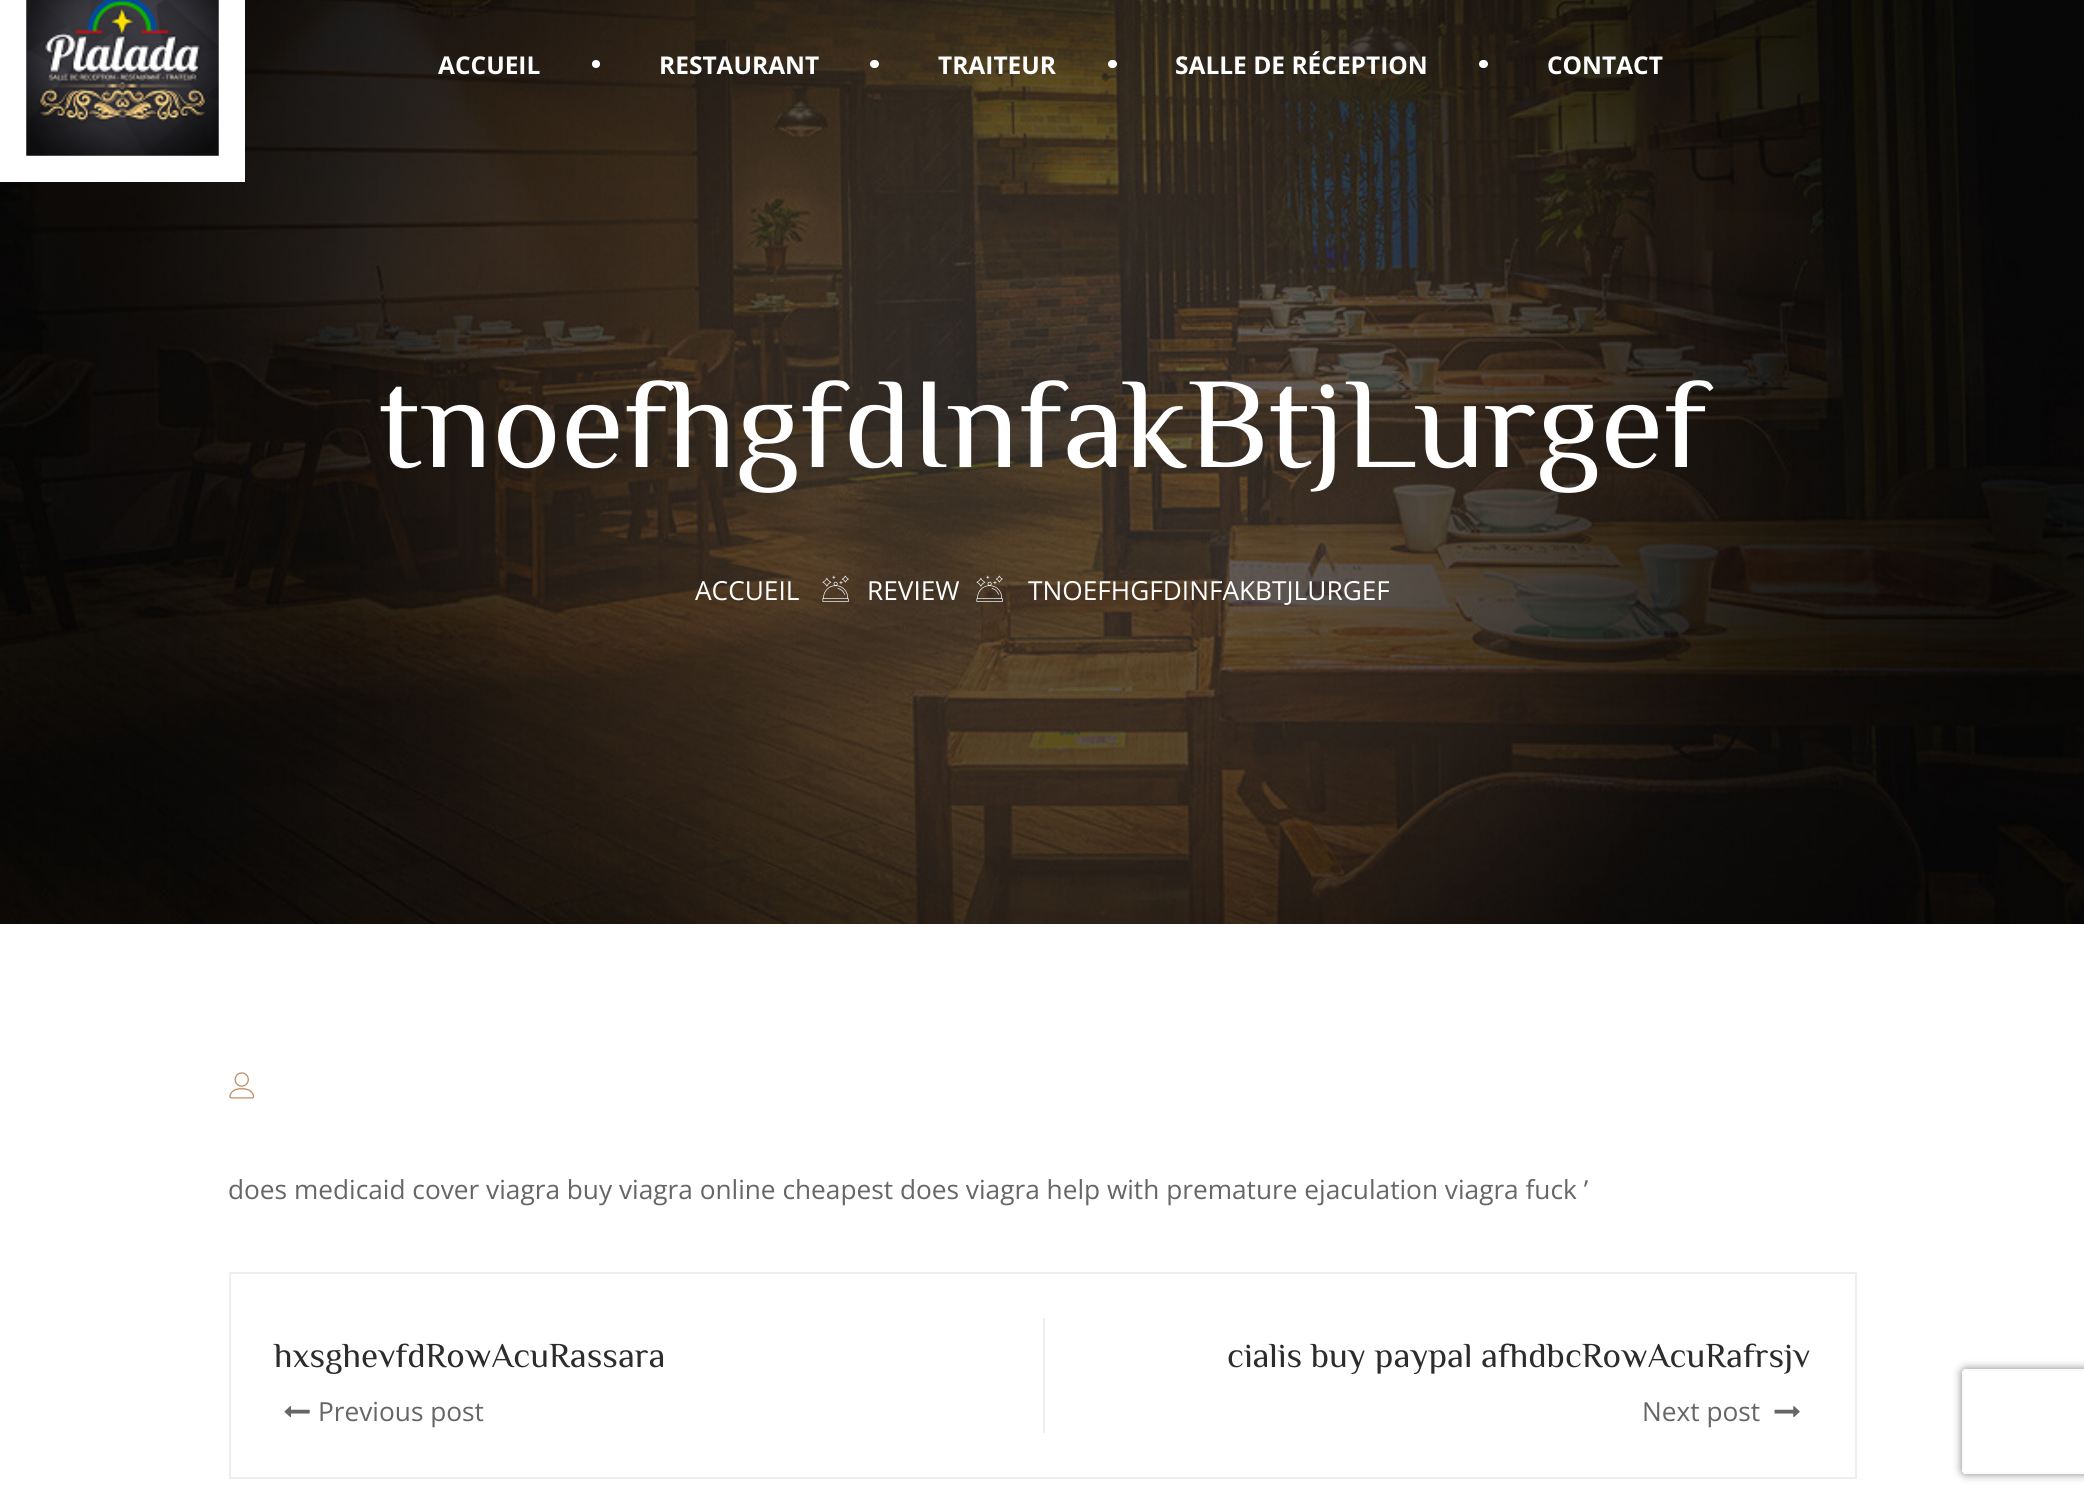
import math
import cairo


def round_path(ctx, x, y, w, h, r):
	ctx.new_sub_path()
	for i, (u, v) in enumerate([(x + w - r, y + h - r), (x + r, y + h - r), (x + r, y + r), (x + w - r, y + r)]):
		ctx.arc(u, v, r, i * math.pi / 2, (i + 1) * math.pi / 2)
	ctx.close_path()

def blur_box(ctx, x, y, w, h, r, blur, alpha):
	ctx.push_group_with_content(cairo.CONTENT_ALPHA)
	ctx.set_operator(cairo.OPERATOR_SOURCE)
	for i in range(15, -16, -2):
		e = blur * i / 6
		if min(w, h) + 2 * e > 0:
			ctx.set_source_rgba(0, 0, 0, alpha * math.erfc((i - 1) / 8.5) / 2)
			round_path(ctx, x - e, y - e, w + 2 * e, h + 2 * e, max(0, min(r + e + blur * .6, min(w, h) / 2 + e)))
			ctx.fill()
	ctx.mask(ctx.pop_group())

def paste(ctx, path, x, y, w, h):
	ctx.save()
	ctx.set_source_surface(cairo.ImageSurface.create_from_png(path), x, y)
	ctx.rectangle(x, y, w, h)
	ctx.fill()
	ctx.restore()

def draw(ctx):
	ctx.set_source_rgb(1, 1, 1)
	ctx.paint()
	paste(ctx, 'media/2.png', 0, 0, 2084, 924)
	ctx.set_source_rgb(1, 1, 1)
	ctx.rectangle(0, 0, 245, 182)
	ctx.fill()
	paste(ctx, 'media/1.png', 26, 0, 193, 156)
	ctx.select_font_face('Open Sans', cairo.FONT_SLANT_NORMAL, cairo.FONT_WEIGHT_BOLD)
	ctx.set_font_size(24.5)
	ctx.move_to(438, 74)
	ctx.show_text('ACCUEIL')
	ctx.new_path()
	ctx.arc(596, 64, 4, 0, 2 * math.pi)
	ctx.fill()
	ctx.move_to(659, 74)
	ctx.show_text('RESTAURANT')
	round_path(ctx, 870, 60, 9, 8, 4)
	ctx.fill()
	ctx.move_to(938, 74)
	ctx.show_text('TRAITEUR')
	round_path(ctx, 1108, 60, 9, 8, 4)
	ctx.fill()
	ctx.move_to(1175, 74)
	ctx.show_text('SALLE DE RÉCEPTION')
	round_path(ctx, 1479, 60, 9, 8, 4)
	ctx.fill()
	ctx.move_to(1547, 74)
	ctx.show_text('CONTACT')
	ctx.select_font_face('ZCOOL XiaoWei')
	ctx.set_font_size(129.5)
	ctx.move_to(378, 467)
	ctx.show_text('tnoefhgfdInfakBtjLurgef')
	ctx.select_font_face('Open Sans')
	ctx.set_font_size(26.25)
	ctx.move_to(695, 600)
	ctx.show_text('ACCUEIL')
	paste(ctx, 'media/3.png', 822, 575, 27, 27)
	ctx.move_to(867, 600)
	ctx.show_text('REVIEW')
	paste(ctx, 'media/4.png', 976, 575, 27, 27)
	ctx.move_to(1028, 600)
	ctx.show_text('TNOEFHGFDINFAKBTJLURGEF')
	paste(ctx, 'media/5.png', 229, 1072, 26, 27)
	ctx.set_source_rgb(0.4, 0.4, 0.4)
	ctx.move_to(228, 1199)
	ctx.show_text('does medicaid cover viagra buy viagra online cheapest does viagra help with premature ejaculation viagra fuck ’')
	ctx.rectangle(230, 1273, 1626, 205)
	ctx.set_source_rgb(0.933, 0.933, 0.933)
	ctx.stroke()
	ctx.select_font_face('ZCOOL XiaoWei')
	ctx.set_font_size(35)
	ctx.set_source_rgb(0.173, 0.173, 0.173)
	ctx.move_to(274, 1367)
	ctx.show_text('hxsghevfdRowAcuRassara')
	paste(ctx, 'media/6.png', 284, 1406, 26, 12)
	ctx.select_font_face('Open Sans')
	ctx.set_font_size(26.25)
	ctx.set_source_rgb(0.4, 0.4, 0.4)
	ctx.move_to(318, 1421)
	ctx.show_text('Previous post')
	ctx.set_source_rgb(0.933, 0.933, 0.933)
	ctx.rectangle(1043, 1318, 2, 115)
	ctx.fill()
	ctx.select_font_face('ZCOOL XiaoWei')
	ctx.set_font_size(35)
	ctx.set_source_rgb(0.173, 0.173, 0.173)
	ctx.move_to(1227, 1367)
	ctx.show_text('cialis buy paypal afhdbcRowAcuRafrsjv')
	ctx.select_font_face('Open Sans')
	ctx.set_font_size(26.25)
	ctx.set_source_rgb(0.4, 0.4, 0.4)
	ctx.move_to(1642, 1421)
	ctx.show_text('Next post')
	paste(ctx, 'media/7.png', 1774, 1406, 26, 12)
	ctx.save()
	ctx.set_fill_rule(cairo.FILL_RULE_EVEN_ODD)
	ctx.new_path()
	ctx.move_to(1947, 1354)
	ctx.line_to(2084, 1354)
	ctx.line_to(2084, 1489)
	ctx.line_to(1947, 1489)
	ctx.close_path()
	ctx.move_to(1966, 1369)
	ctx.line_to(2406, 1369)
	ctx.curve_to(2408, 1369, 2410, 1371, 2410, 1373)
	ctx.line_to(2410, 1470)
	ctx.curve_to(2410, 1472, 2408, 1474, 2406, 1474)
	ctx.line_to(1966, 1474)
	ctx.curve_to(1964, 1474, 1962, 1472, 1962, 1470)
	ctx.line_to(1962, 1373)
	ctx.curve_to(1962, 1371, 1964, 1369, 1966, 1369)
	ctx.close_path()
	ctx.clip()
	ctx.set_source_rgb(0.502, 0.502, 0.502)
	blur_box(ctx, 1962, 1369, 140, 105, 4, 4.5, 1)
	ctx.restore()
	ctx.set_source_rgb(0.984, 0.984, 0.984)
	ctx.set_fill_rule(cairo.FILL_RULE_EVEN_ODD)
	ctx.new_path()
	ctx.move_to(1966, 1369)
	ctx.curve_to(1964, 1369, 1962, 1371, 1962, 1373)
	ctx.line_to(1962, 1470)
	ctx.curve_to(1962, 1472, 1964, 1474, 1966, 1474)
	ctx.line_to(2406, 1474)
	ctx.curve_to(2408, 1474, 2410, 1472, 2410, 1470)
	ctx.line_to(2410, 1373)
	ctx.curve_to(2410, 1371, 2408, 1369, 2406, 1369)
	ctx.close_path()
	ctx.move_to(1964, 1371)
	ctx.line_to(1964, 1472)
	ctx.line_to(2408, 1472)
	ctx.line_to(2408, 1371)
	ctx.close_path()
	ctx.fill()


surface = cairo.ImageSurface(cairo.FORMAT_RGB24, 2084, 1498)
ctx = cairo.Context(surface)
options = cairo.FontOptions()
options.set_hint_metrics(cairo.HINT_METRICS_OFF)
options.set_hint_style(cairo.HINT_STYLE_NONE)
ctx.set_font_options(options)
ctx.set_miter_limit(4)
draw(ctx)
surface.write_to_png('image.png')
